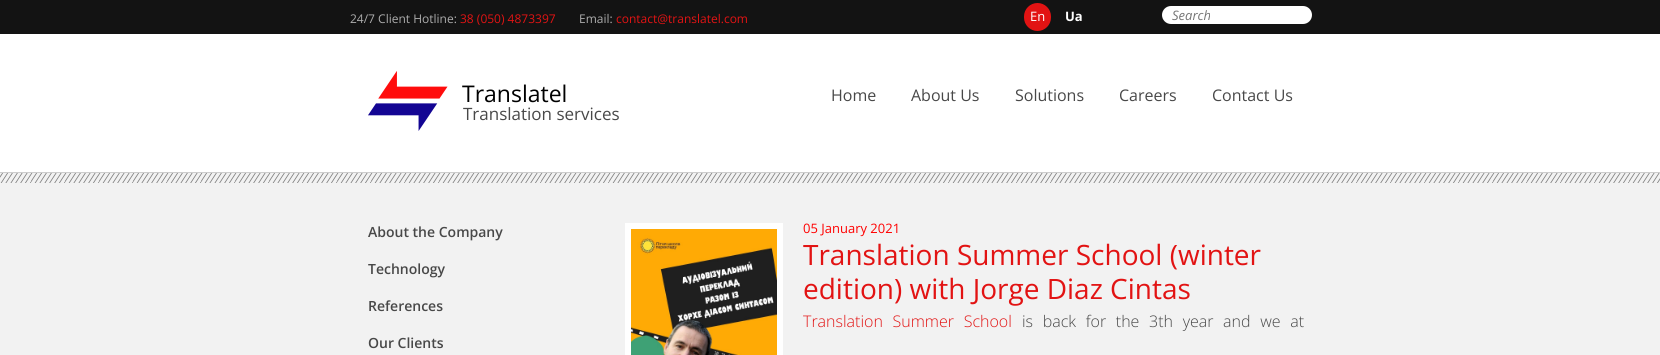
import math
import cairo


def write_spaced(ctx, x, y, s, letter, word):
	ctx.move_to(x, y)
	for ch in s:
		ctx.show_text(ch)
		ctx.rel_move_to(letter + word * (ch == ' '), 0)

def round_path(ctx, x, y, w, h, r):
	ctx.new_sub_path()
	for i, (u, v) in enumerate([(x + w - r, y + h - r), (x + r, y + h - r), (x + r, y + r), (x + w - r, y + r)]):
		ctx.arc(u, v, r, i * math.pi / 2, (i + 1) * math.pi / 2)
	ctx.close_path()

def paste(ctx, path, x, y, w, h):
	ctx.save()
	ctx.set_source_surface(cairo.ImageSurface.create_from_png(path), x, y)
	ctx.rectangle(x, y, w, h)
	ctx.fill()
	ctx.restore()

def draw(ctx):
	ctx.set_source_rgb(0.949, 0.949, 0.949)
	ctx.paint()
	paste(ctx, 'media/1.png', 0, 0, 1660, 183)
	ctx.select_font_face('Open Sans')
	ctx.set_font_size(12)
	ctx.set_source_rgb(0.678, 0.678, 0.678)
	ctx.move_to(350, 23)
	ctx.show_text('24/7 Client Hotline:')
	ctx.set_source_rgb(0.886, 0.078, 0.078)
	ctx.move_to(460, 23)
	ctx.show_text('38 (050) 4873397')
	ctx.set_source_rgb(0.678, 0.678, 0.678)
	ctx.move_to(579, 23)
	ctx.show_text('Email:')
	ctx.set_source_rgb(0.886, 0.078, 0.078)
	ctx.move_to(616, 23)
	ctx.show_text('contact@translatel.com')
	round_path(ctx, 1024, 3, 27, 28, 13.5)
	ctx.fill()
	ctx.set_font_size(13)
	ctx.set_source_rgb(1, 1, 1)
	ctx.move_to(1030, 21)
	ctx.show_text('En')
	ctx.select_font_face('Open Sans', cairo.FONT_SLANT_NORMAL, cairo.FONT_WEIGHT_BOLD)
	ctx.move_to(1065, 21)
	ctx.show_text('Ua')
	round_path(ctx, 1162, 6, 150, 18, 9)
	ctx.fill()
	ctx.select_font_face('Open Sans', cairo.FONT_SLANT_ITALIC)
	ctx.set_source_rgb(0.459, 0.459, 0.459)
	ctx.move_to(1172, 20)
	ctx.show_text('Search')
	paste(ctx, 'media/2.png', 368, 71, 80, 60)
	ctx.select_font_face('Open Sans')
	ctx.set_font_size(23)
	ctx.set_source_rgb(0, 0, 0)
	ctx.move_to(462, 102)
	ctx.show_text('Translatel')
	ctx.set_font_size(16)
	ctx.set_source_rgb(0.282, 0.282, 0.282)
	for x, y, s in [
		(831, 101, 'Home'),
		(911, 101, 'About Us'),
		(1015, 101, 'Solutions'),
		(1119, 101, 'Careers'),
		(1212, 101, 'Contact Us'),
	]:
		ctx.move_to(x, y)
		ctx.show_text(s)
	ctx.set_font_size(17)
	ctx.move_to(463, 120)
	ctx.show_text('Translation services')
	ctx.select_font_face('Open Sans SemiBold')
	ctx.set_font_size(14)
	for x, y, s in [
		(368, 237, 'About the Company'),
		(368, 274, 'Technology'),
		(368, 311, 'References'),
		(368, 348, 'Our Clients'),
	]:
		ctx.move_to(x, y)
		ctx.show_text(s)
	ctx.rectangle(628, 226, 152, 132)
	ctx.set_source_rgb(1, 1, 1)
	ctx.set_line_width(6)
	ctx.stroke()
	paste(ctx, 'media/3.png', 631, 229, 146, 126)
	ctx.select_font_face('Open Sans')
	ctx.set_font_size(13)
	ctx.set_source_rgb(1, 0, 0)
	ctx.move_to(803, 233)
	ctx.show_text('05 January 2021')
	ctx.set_font_size(28)
	ctx.set_source_rgb(0.886, 0.078, 0.078)
	ctx.move_to(803, 265)
	ctx.show_text('Translation Summer School (winter')
	ctx.move_to(803, 299)
	ctx.show_text('edition) with Jorge Diaz Cintas')
	ctx.select_font_face('Open Sans Light')
	ctx.set_font_size(16)
	write_spaced(ctx, 803, 327, 'Translation Summer School', 0, 5.5)
	ctx.set_source_rgb(0.282, 0.282, 0.282)
	write_spaced(ctx, 1022, 327, 'is back for the 3th year and we at', 0, 5.5)


surface = cairo.ImageSurface(cairo.FORMAT_RGB24, 1660, 355)
ctx = cairo.Context(surface)
options = cairo.FontOptions()
options.set_hint_metrics(cairo.HINT_METRICS_OFF)
options.set_hint_style(cairo.HINT_STYLE_NONE)
ctx.set_font_options(options)
ctx.set_miter_limit(4)
draw(ctx)
surface.write_to_png('image.png')
